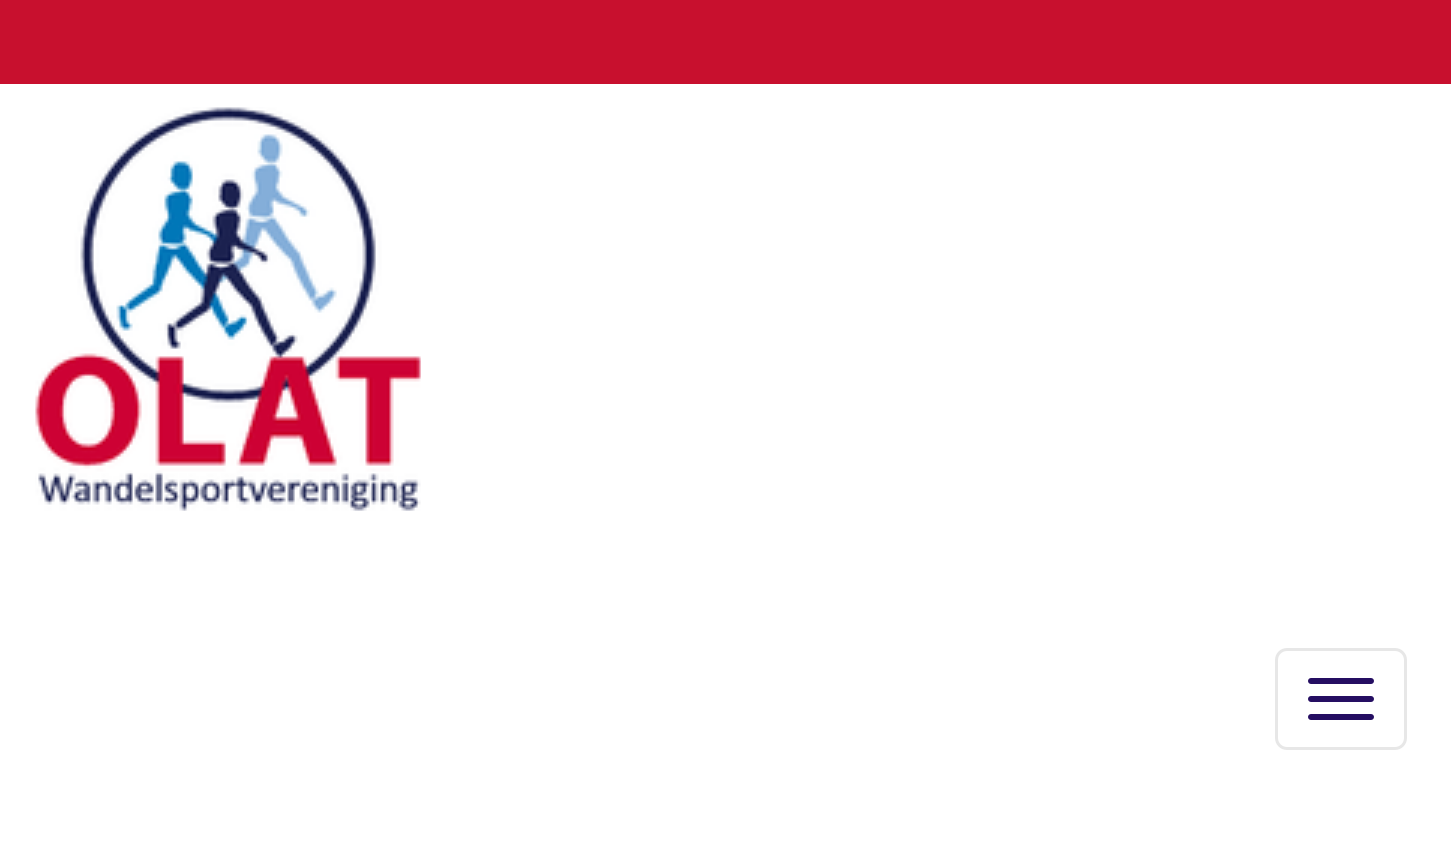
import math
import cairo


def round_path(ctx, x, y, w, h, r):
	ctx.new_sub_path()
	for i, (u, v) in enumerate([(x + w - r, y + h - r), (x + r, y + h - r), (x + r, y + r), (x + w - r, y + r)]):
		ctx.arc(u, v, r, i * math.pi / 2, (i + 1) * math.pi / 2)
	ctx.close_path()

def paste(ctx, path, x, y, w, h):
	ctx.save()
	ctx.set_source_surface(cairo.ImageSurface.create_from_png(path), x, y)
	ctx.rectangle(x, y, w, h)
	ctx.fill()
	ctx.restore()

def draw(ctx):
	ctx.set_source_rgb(1, 1, 1)
	ctx.paint()
	ctx.set_source_rgb(0.784, 0.063, 0.18)
	ctx.rectangle(0, 0, 1451, 84)
	ctx.fill()
	paste(ctx, 'media/1.png', 35, 107, 386, 404)
	round_path(ctx, 1276.5, 649.5, 129, 99, 10.5)
	ctx.set_source_rgb(0.906, 0.906, 0.906)
	ctx.set_line_width(3)
	ctx.stroke()
	ctx.set_source_rgb(0.145, 0.055, 0.384)
	round_path(ctx, 1308, 678, 66, 6, 3)
	ctx.fill()
	round_path(ctx, 1308, 696, 66, 6, 3)
	ctx.fill()
	round_path(ctx, 1308, 714, 66, 6, 3)
	ctx.fill()


surface = cairo.ImageSurface(cairo.FORMAT_RGB24, 1451, 860)
ctx = cairo.Context(surface)
options = cairo.FontOptions()
options.set_hint_metrics(cairo.HINT_METRICS_OFF)
options.set_hint_style(cairo.HINT_STYLE_NONE)
ctx.set_font_options(options)
ctx.set_miter_limit(4)
draw(ctx)
surface.write_to_png('image.png')
